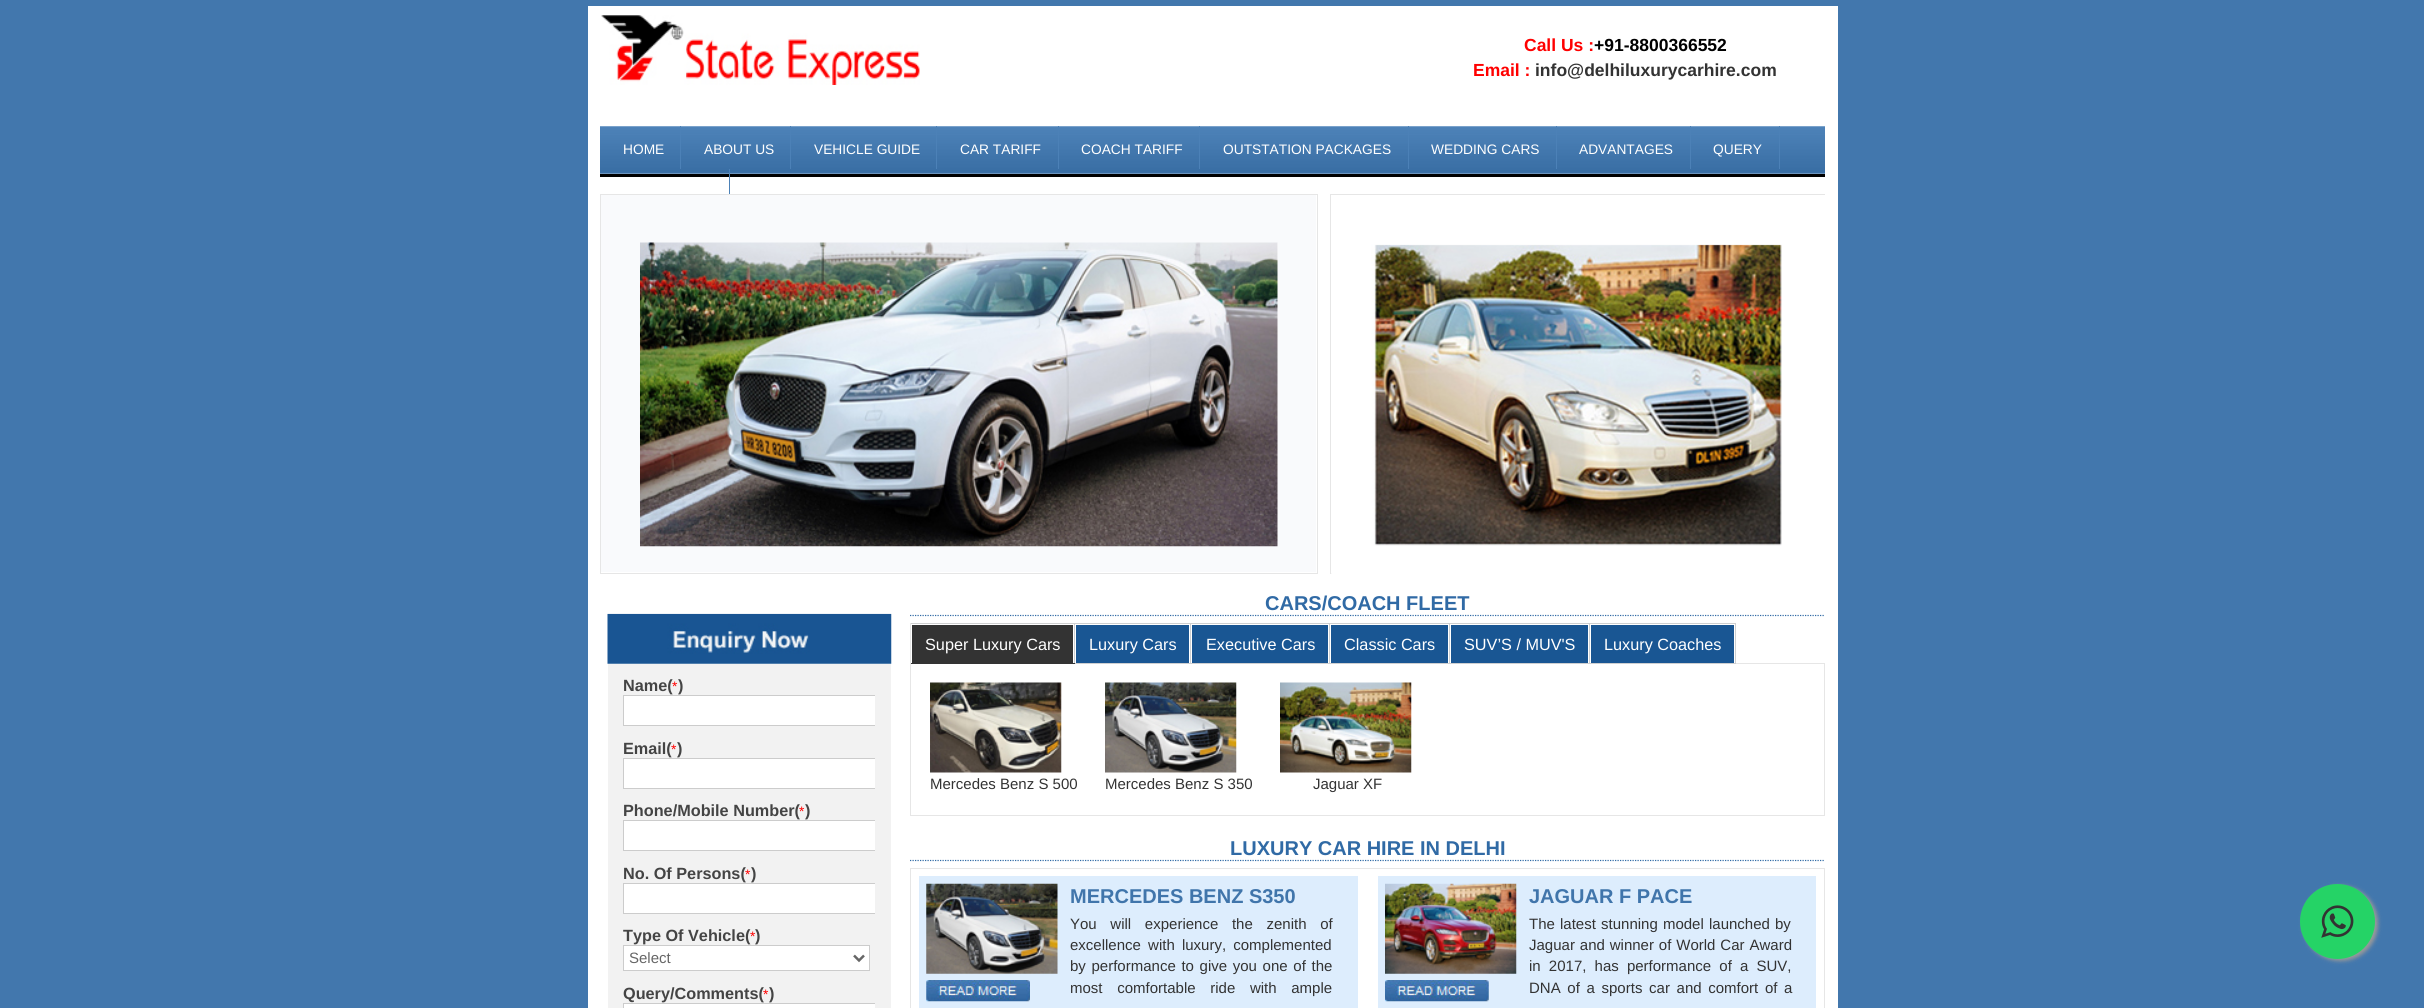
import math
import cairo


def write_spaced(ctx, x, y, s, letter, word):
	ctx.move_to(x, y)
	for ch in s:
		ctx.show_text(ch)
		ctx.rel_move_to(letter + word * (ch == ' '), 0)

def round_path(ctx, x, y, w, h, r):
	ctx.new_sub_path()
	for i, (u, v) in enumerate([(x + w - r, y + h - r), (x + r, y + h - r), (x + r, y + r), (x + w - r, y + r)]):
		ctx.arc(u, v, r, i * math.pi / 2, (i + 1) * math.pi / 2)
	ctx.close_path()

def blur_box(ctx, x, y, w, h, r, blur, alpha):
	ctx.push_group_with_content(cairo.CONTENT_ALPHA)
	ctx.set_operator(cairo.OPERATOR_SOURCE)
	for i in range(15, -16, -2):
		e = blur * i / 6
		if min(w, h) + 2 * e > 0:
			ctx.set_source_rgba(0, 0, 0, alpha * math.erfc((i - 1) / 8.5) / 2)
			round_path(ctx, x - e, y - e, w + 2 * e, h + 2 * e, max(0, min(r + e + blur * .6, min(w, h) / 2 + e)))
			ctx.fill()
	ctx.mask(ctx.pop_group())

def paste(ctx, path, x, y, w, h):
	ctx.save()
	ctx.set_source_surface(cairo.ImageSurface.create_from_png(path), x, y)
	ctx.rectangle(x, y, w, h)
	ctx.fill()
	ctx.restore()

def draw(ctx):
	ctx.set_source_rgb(0.259, 0.467, 0.678)
	ctx.paint()
	ctx.set_source_rgb(1, 1, 1)
	ctx.rectangle(588, 6, 1250, 1002)
	ctx.fill()
	paste(ctx, 'media/1.png', 601, 15, 319, 70)
	ctx.select_font_face('Liberation Sans', cairo.FONT_SLANT_NORMAL, cairo.FONT_WEIGHT_BOLD)
	ctx.set_font_size(17.5)
	ctx.set_source_rgb(1, 0, 0)
	ctx.move_to(1524, 51)
	ctx.show_text('Call Us :')
	ctx.set_source_rgb(0, 0, 0)
	ctx.move_to(1594, 51)
	ctx.show_text('+91-8800366552')
	ctx.set_source_rgb(1, 0, 0)
	ctx.move_to(1473, 76)
	ctx.show_text('Email :')
	ctx.set_source_rgb(0.2, 0.2, 0.2)
	ctx.move_to(1535, 76)
	ctx.show_text('info@delhiluxurycarhire.com')
	paste(ctx, 'media/2.png', 600, 126, 1225, 48)
	ctx.set_source_rgb(0, 0, 0)
	ctx.rectangle(600, 174, 1225, 3)
	ctx.fill()
	ctx.set_source_rgb(0.298, 0.506, 0.718)
	ctx.rectangle(680, 126, 1, 43)
	ctx.fill()
	ctx.select_font_face('Liberation Sans')
	ctx.set_font_size(13.75)
	ctx.set_source_rgb(1, 1, 1)
	ctx.move_to(623, 154)
	ctx.show_text('HOME')
	ctx.set_source_rgb(0.298, 0.506, 0.718)
	ctx.rectangle(790, 126, 1, 43)
	ctx.fill()
	ctx.set_source_rgb(1, 1, 1)
	ctx.move_to(704, 154)
	ctx.show_text('ABOUT US')
	ctx.set_source_rgb(0.298, 0.506, 0.718)
	ctx.rectangle(936, 126, 1, 43)
	ctx.fill()
	ctx.set_source_rgb(1, 1, 1)
	ctx.move_to(814, 154)
	ctx.show_text('VEHICLE GUIDE')
	ctx.set_source_rgb(0.298, 0.506, 0.718)
	ctx.rectangle(1058, 126, 1, 43)
	ctx.fill()
	ctx.set_source_rgb(1, 1, 1)
	ctx.move_to(960, 154)
	ctx.show_text('CAR TARIFF')
	ctx.set_source_rgb(0.298, 0.506, 0.718)
	ctx.rectangle(1199, 126, 1, 43)
	ctx.fill()
	ctx.set_source_rgb(1, 1, 1)
	ctx.move_to(1081, 154)
	ctx.show_text('COACH TARIFF')
	ctx.set_source_rgb(0.298, 0.506, 0.718)
	ctx.rectangle(1408, 126, 1, 43)
	ctx.fill()
	ctx.set_source_rgb(1, 1, 1)
	ctx.move_to(1223, 154)
	ctx.show_text('OUTSTATION PACKAGES')
	ctx.set_source_rgb(0.298, 0.506, 0.718)
	ctx.rectangle(1556, 126, 1, 43)
	ctx.fill()
	ctx.set_source_rgb(1, 1, 1)
	ctx.move_to(1431, 154)
	ctx.show_text('WEDDING CARS')
	ctx.set_source_rgb(0.298, 0.506, 0.718)
	ctx.rectangle(1690, 126, 1, 43)
	ctx.fill()
	ctx.set_source_rgb(1, 1, 1)
	ctx.move_to(1579, 154)
	ctx.show_text('ADVANTAGES')
	ctx.set_source_rgb(0.298, 0.506, 0.718)
	ctx.rectangle(1779, 126, 1, 43)
	ctx.fill()
	ctx.set_source_rgb(1, 1, 1)
	ctx.move_to(1713, 154)
	ctx.show_text('QUERY')
	ctx.set_source_rgb(0.298, 0.506, 0.718)
	ctx.rectangle(729, 169, 1, 25)
	ctx.fill()
	ctx.set_source_rgb(0.976, 0.98, 0.988)
	ctx.rectangle(601, 195, 715, 377)
	ctx.fill()
	ctx.rectangle(600.5, 194.5, 717, 379)
	ctx.set_source_rgb(0.902, 0.902, 0.902)
	ctx.set_line_width(1)
	ctx.stroke()
	ctx.set_source_rgb(1, 1, 1)
	ctx.rectangle(1277, 243, 1, 303)
	ctx.fill()
	paste(ctx, 'media/3.png', 640, 242, 638, 305)
	ctx.rectangle(1330.5, 194.5, 494, 379)
	ctx.set_source_rgb(0.902, 0.902, 0.902)
	ctx.stroke()
	paste(ctx, 'media/4.png', 1331, 195, 494, 379)
	paste(ctx, 'media/5.png', 607, 613, 285, 51)
	ctx.set_source_rgb(0.949, 0.949, 0.949)
	ctx.rectangle(608, 664, 283, 344)
	ctx.fill()
	ctx.select_font_face('Liberation Sans', cairo.FONT_SLANT_NORMAL, cairo.FONT_WEIGHT_BOLD)
	ctx.set_font_size(16.25)
	ctx.set_source_rgb(0.267, 0.267, 0.267)
	ctx.move_to(623, 691)
	ctx.show_text('Name(')
	ctx.select_font_face('Liberation Sans')
	ctx.set_font_size(13.75)
	ctx.set_source_rgb(1, 0, 0)
	ctx.move_to(672, 691)
	ctx.show_text('*')
	ctx.select_font_face('Liberation Sans', cairo.FONT_SLANT_NORMAL, cairo.FONT_WEIGHT_BOLD)
	ctx.set_font_size(16.25)
	ctx.set_source_rgb(0.267, 0.267, 0.267)
	ctx.move_to(678, 691)
	ctx.show_text(')')
	ctx.set_source_rgb(1, 1, 1)
	ctx.rectangle(624, 696, 251, 29)
	ctx.fill()
	ctx.save()
	ctx.rectangle(623, 676, 252, 63)
	ctx.clip()
	ctx.rectangle(623.5, 695.5, 254, 30)
	ctx.set_source_rgb(0.8, 0.8, 0.8)
	ctx.stroke()
	ctx.restore()
	ctx.set_source_rgb(0.267, 0.267, 0.267)
	ctx.move_to(623, 754)
	ctx.show_text('Email(')
	ctx.select_font_face('Liberation Sans')
	ctx.set_font_size(13.75)
	ctx.set_source_rgb(1, 0, 0)
	ctx.move_to(671, 754)
	ctx.show_text('*')
	ctx.select_font_face('Liberation Sans', cairo.FONT_SLANT_NORMAL, cairo.FONT_WEIGHT_BOLD)
	ctx.set_font_size(16.25)
	ctx.set_source_rgb(0.267, 0.267, 0.267)
	ctx.move_to(677, 754)
	ctx.show_text(')')
	ctx.set_source_rgb(1, 1, 1)
	ctx.rectangle(624, 759, 251, 29)
	ctx.fill()
	ctx.save()
	ctx.rectangle(623, 739, 252, 62)
	ctx.clip()
	ctx.rectangle(623.5, 758.5, 254, 30)
	ctx.set_source_rgb(0.8, 0.8, 0.8)
	ctx.stroke()
	ctx.restore()
	ctx.set_source_rgb(0.267, 0.267, 0.267)
	ctx.move_to(623, 816)
	ctx.show_text('Phone/Mobile Number(')
	ctx.select_font_face('Liberation Sans')
	ctx.set_font_size(13.75)
	ctx.set_source_rgb(1, 0, 0)
	ctx.move_to(799, 816)
	ctx.show_text('*')
	ctx.select_font_face('Liberation Sans', cairo.FONT_SLANT_NORMAL, cairo.FONT_WEIGHT_BOLD)
	ctx.set_font_size(16.25)
	ctx.set_source_rgb(0.267, 0.267, 0.267)
	ctx.move_to(805, 816)
	ctx.show_text(')')
	ctx.set_source_rgb(1, 1, 1)
	ctx.rectangle(624, 821, 251, 29)
	ctx.fill()
	ctx.save()
	ctx.rectangle(623, 801, 252, 63)
	ctx.clip()
	ctx.rectangle(623.5, 820.5, 254, 30)
	ctx.set_source_rgb(0.8, 0.8, 0.8)
	ctx.stroke()
	ctx.restore()
	ctx.set_source_rgb(0.267, 0.267, 0.267)
	ctx.move_to(623, 879)
	ctx.show_text('No. Of Persons(')
	ctx.select_font_face('Liberation Sans')
	ctx.set_font_size(13.75)
	ctx.set_source_rgb(1, 0, 0)
	ctx.move_to(745, 879)
	ctx.show_text('*')
	ctx.select_font_face('Liberation Sans', cairo.FONT_SLANT_NORMAL, cairo.FONT_WEIGHT_BOLD)
	ctx.set_font_size(16.25)
	ctx.set_source_rgb(0.267, 0.267, 0.267)
	ctx.move_to(751, 879)
	ctx.show_text(')')
	ctx.set_source_rgb(1, 1, 1)
	ctx.rectangle(624, 884, 251, 29)
	ctx.fill()
	ctx.save()
	ctx.rectangle(623, 864, 252, 62)
	ctx.clip()
	ctx.rectangle(623.5, 883.5, 254, 30)
	ctx.set_source_rgb(0.8, 0.8, 0.8)
	ctx.stroke()
	ctx.restore()
	ctx.save()
	ctx.rectangle(623, 926, 252, 58)
	ctx.clip()
	ctx.set_source_rgb(0.267, 0.267, 0.267)
	ctx.move_to(623, 941)
	ctx.show_text('Type Of Vehicle(')
	ctx.restore()
	ctx.select_font_face('Liberation Sans')
	ctx.set_font_size(13.75)
	ctx.set_source_rgb(1, 0, 0)
	ctx.move_to(750, 941)
	ctx.show_text('*')
	ctx.select_font_face('Liberation Sans', cairo.FONT_SLANT_NORMAL, cairo.FONT_WEIGHT_BOLD)
	ctx.set_font_size(16.25)
	ctx.set_source_rgb(0.267, 0.267, 0.267)
	ctx.move_to(755, 941)
	ctx.show_text(')')
	ctx.set_source_rgb(1, 1, 1)
	ctx.rectangle(623.5, 945.5, 246, 25)
	ctx.fill_preserve()
	ctx.set_source_rgb(0.8, 0.8, 0.8)
	ctx.stroke()
	ctx.new_path()
	ctx.move_to(854, 955.5)
	ctx.line_to(859, 960.5)
	ctx.line_to(864, 955.5)
	ctx.set_source_rgb(0.4, 0.4, 0.4)
	ctx.set_line_width(2.5)
	ctx.stroke()
	ctx.select_font_face('Liberation Sans')
	ctx.set_font_size(15)
	ctx.move_to(629, 963)
	ctx.show_text('Select')
	ctx.select_font_face('Liberation Sans', cairo.FONT_SLANT_NORMAL, cairo.FONT_WEIGHT_BOLD)
	ctx.set_font_size(16.25)
	ctx.set_source_rgb(0.267, 0.267, 0.267)
	ctx.move_to(623, 999)
	ctx.show_text('Query/Comments(')
	ctx.select_font_face('Liberation Sans')
	ctx.set_font_size(13.75)
	ctx.set_source_rgb(1, 0, 0)
	ctx.move_to(763, 999)
	ctx.show_text('*')
	ctx.select_font_face('Liberation Sans', cairo.FONT_SLANT_NORMAL, cairo.FONT_WEIGHT_BOLD)
	ctx.set_font_size(16.25)
	ctx.set_source_rgb(0.267, 0.267, 0.267)
	ctx.move_to(769, 999)
	ctx.show_text(')')
	ctx.set_source_rgb(1, 1, 1)
	ctx.rectangle(623, 1004, 252, 4)
	ctx.fill()
	ctx.save()
	ctx.rectangle(623, 984, 252, 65)
	ctx.clip()
	ctx.rectangle(623.5, 1003.5, 254, 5)
	ctx.set_source_rgb(0.8, 0.8, 0.8)
	ctx.set_line_width(1)
	ctx.stroke()
	ctx.restore()
	ctx.new_path()
	ctx.move_to(910, 615.5)
	ctx.line_to(1825, 615.5)
	ctx.set_source_rgb(0.188, 0.416, 0.647)
	ctx.set_line_width(1.2)
	ctx.set_dash([1.25, 1.25])
	ctx.stroke()
	ctx.set_font_size(20)
	ctx.move_to(1265, 610)
	ctx.show_text('CARS/COACH FLEET')
	ctx.set_source_rgb(0.902, 0.902, 0.902)
	ctx.rectangle(1736, 663, 89, 1)
	ctx.rectangle(910, 623, 1, 41)
	ctx.fill()
	ctx.set_source_rgb(0.2, 0.2, 0.2)
	ctx.rectangle(912, 625, 161, 38)
	ctx.fill()
	ctx.set_source_rgb(0.808, 0.812, 0.816)
	ctx.rectangle(911, 623, 825, 1)
	ctx.rectangle(1074, 623, 1, 41)
	ctx.fill()
	ctx.set_source_rgb(0.2, 0.2, 0.2)
	ctx.rectangle(911, 663, 164, 1)
	ctx.fill()
	ctx.select_font_face('Liberation Sans')
	ctx.set_font_size(16.25)
	ctx.set_source_rgb(1, 1, 1)
	ctx.move_to(925, 650)
	ctx.show_text('Super Luxury Cars')
	ctx.set_source_rgb(0.098, 0.337, 0.576)
	ctx.rectangle(1076, 625, 113, 38)
	ctx.fill()
	ctx.set_source_rgb(0.808, 0.812, 0.816)
	ctx.rectangle(1190, 623, 1, 41)
	ctx.rectangle(1075, 663, 116, 1)
	ctx.fill()
	ctx.set_source_rgb(1, 1, 1)
	ctx.move_to(1089, 650)
	ctx.show_text('Luxury Cars')
	ctx.set_source_rgb(0.098, 0.337, 0.576)
	ctx.rectangle(1192, 625, 136, 38)
	ctx.fill()
	ctx.set_source_rgb(0.808, 0.812, 0.816)
	ctx.rectangle(1329, 623, 1, 41)
	ctx.rectangle(1191, 663, 139, 1)
	ctx.fill()
	ctx.set_source_rgb(1, 1, 1)
	ctx.move_to(1206, 650)
	ctx.show_text('Executive Cars')
	ctx.set_source_rgb(0.098, 0.337, 0.576)
	ctx.rectangle(1331, 625, 117, 38)
	ctx.fill()
	ctx.set_source_rgb(0.808, 0.812, 0.816)
	ctx.rectangle(1449, 623, 1, 41)
	ctx.rectangle(1330, 663, 120, 1)
	ctx.fill()
	ctx.set_source_rgb(1, 1, 1)
	ctx.move_to(1344, 650)
	ctx.show_text('Classic Cars')
	ctx.set_source_rgb(0.098, 0.337, 0.576)
	ctx.rectangle(1451, 625, 137, 38)
	ctx.fill()
	ctx.set_source_rgb(0.808, 0.812, 0.816)
	ctx.rectangle(1589, 623, 1, 41)
	ctx.rectangle(1450, 663, 140, 1)
	ctx.fill()
	ctx.set_source_rgb(1, 1, 1)
	ctx.move_to(1464, 650)
	ctx.show_text('SUV’S / MUV\'S')
	ctx.set_source_rgb(0.098, 0.337, 0.576)
	ctx.rectangle(1591, 625, 143, 38)
	ctx.fill()
	ctx.set_source_rgb(0.808, 0.812, 0.816)
	ctx.rectangle(1735, 623, 1, 41)
	ctx.rectangle(1590, 663, 146, 1)
	ctx.fill()
	ctx.set_source_rgb(1, 1, 1)
	ctx.move_to(1604, 650)
	ctx.show_text('Luxury Coaches')
	ctx.set_source_rgb(0.902, 0.902, 0.902)
	ctx.rectangle(1824, 664, 1, 152)
	ctx.rectangle(910, 815, 915, 1)
	ctx.rectangle(910, 664, 1, 152)
	ctx.fill()
	paste(ctx, 'media/6.png', 930, 682, 132, 91)
	ctx.set_font_size(15)
	ctx.set_source_rgb(0.2, 0.2, 0.2)
	ctx.move_to(930, 789)
	ctx.show_text('Mercedes Benz S 500')
	paste(ctx, 'media/7.png', 1105, 682, 132, 91)
	ctx.move_to(1105, 789)
	ctx.show_text('Mercedes Benz S 350')
	paste(ctx, 'media/8.png', 1280, 682, 132, 91)
	ctx.move_to(1313, 789)
	ctx.show_text('Jaguar XF')
	ctx.new_path()
	ctx.move_to(910, 860.5)
	ctx.line_to(1825, 860.5)
	ctx.set_source_rgb(0.188, 0.416, 0.647)
	ctx.stroke()
	ctx.select_font_face('Liberation Sans', cairo.FONT_SLANT_NORMAL, cairo.FONT_WEIGHT_BOLD)
	ctx.set_font_size(20)
	ctx.move_to(1230, 855)
	ctx.show_text('LUXURY CAR HIRE IN DELHI')
	ctx.rectangle(910.5, 868.5, 914, 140)
	ctx.set_source_rgb(0.902, 0.902, 0.902)
	ctx.set_line_width(1)
	ctx.set_dash([])
	ctx.stroke()
	ctx.set_source_rgb(0.867, 0.929, 0.992)
	ctx.rectangle(919, 876, 439, 132)
	ctx.fill()
	paste(ctx, 'media/9.png', 926, 883, 132, 91)
	paste(ctx, 'media/10.png', 926, 980, 104, 22)
	ctx.set_source_rgb(0.251, 0.459, 0.671)
	ctx.move_to(1070, 903)
	ctx.show_text('MERCEDES BENZ S350')
	ctx.select_font_face('Liberation Sans')
	ctx.set_font_size(15)
	ctx.set_source_rgb(0.2, 0.2, 0.2)
	write_spaced(ctx, 1070, 929, 'You will experience the zenith of', 0, 9.5)
	write_spaced(ctx, 1070, 950, 'excellence with luxury, complemented', 0, 3)
	write_spaced(ctx, 1070, 971, 'by performance to give you one of the', 0, 1.5)
	write_spaced(ctx, 1070, 993, 'most comfortable ride with ample', 0, 10.5)
	ctx.set_source_rgb(0.867, 0.929, 0.992)
	ctx.rectangle(1378, 876, 438, 132)
	ctx.fill()
	paste(ctx, 'media/11.png', 1385, 883, 132, 91)
	paste(ctx, 'media/12.png', 1385, 980, 104, 22)
	ctx.select_font_face('Liberation Sans', cairo.FONT_SLANT_NORMAL, cairo.FONT_WEIGHT_BOLD)
	ctx.set_font_size(20)
	ctx.set_source_rgb(0.251, 0.459, 0.671)
	ctx.move_to(1529, 903)
	ctx.show_text('JAGUAR F PACE')
	ctx.select_font_face('Liberation Sans')
	ctx.set_font_size(15)
	ctx.set_source_rgb(0.2, 0.2, 0.2)
	write_spaced(ctx, 1529, 929, 'The latest stunning model launched by', 0, 1)
	write_spaced(ctx, 1529, 950, 'Jaguar and winner of World Car Award', 0, 0.75)
	write_spaced(ctx, 1529, 971, 'in 2017, has performance of a SUV,', 0, 4)
	write_spaced(ctx, 1529, 993, 'DNA of a sports car and comfort of a', 0, 2.5)
	ctx.set_source_rgb(0.6, 0.6, 0.6)
	blur_box(ctx, 2303, 886, 75, 75, 37.5, 2, 1)
	ctx.set_source_rgb(0.145, 0.827, 0.4)
	ctx.arc(2337.5, 921.5, 37.5, 0, 2 * math.pi)
	ctx.fill()
	paste(ctx, 'media/13.png', 2321, 905, 33, 33)


surface = cairo.ImageSurface(cairo.FORMAT_RGB24, 2424, 1008)
ctx = cairo.Context(surface)
options = cairo.FontOptions()
options.set_hint_metrics(cairo.HINT_METRICS_OFF)
options.set_hint_style(cairo.HINT_STYLE_NONE)
ctx.set_font_options(options)
ctx.set_miter_limit(4)
draw(ctx)
surface.write_to_png('image.png')
